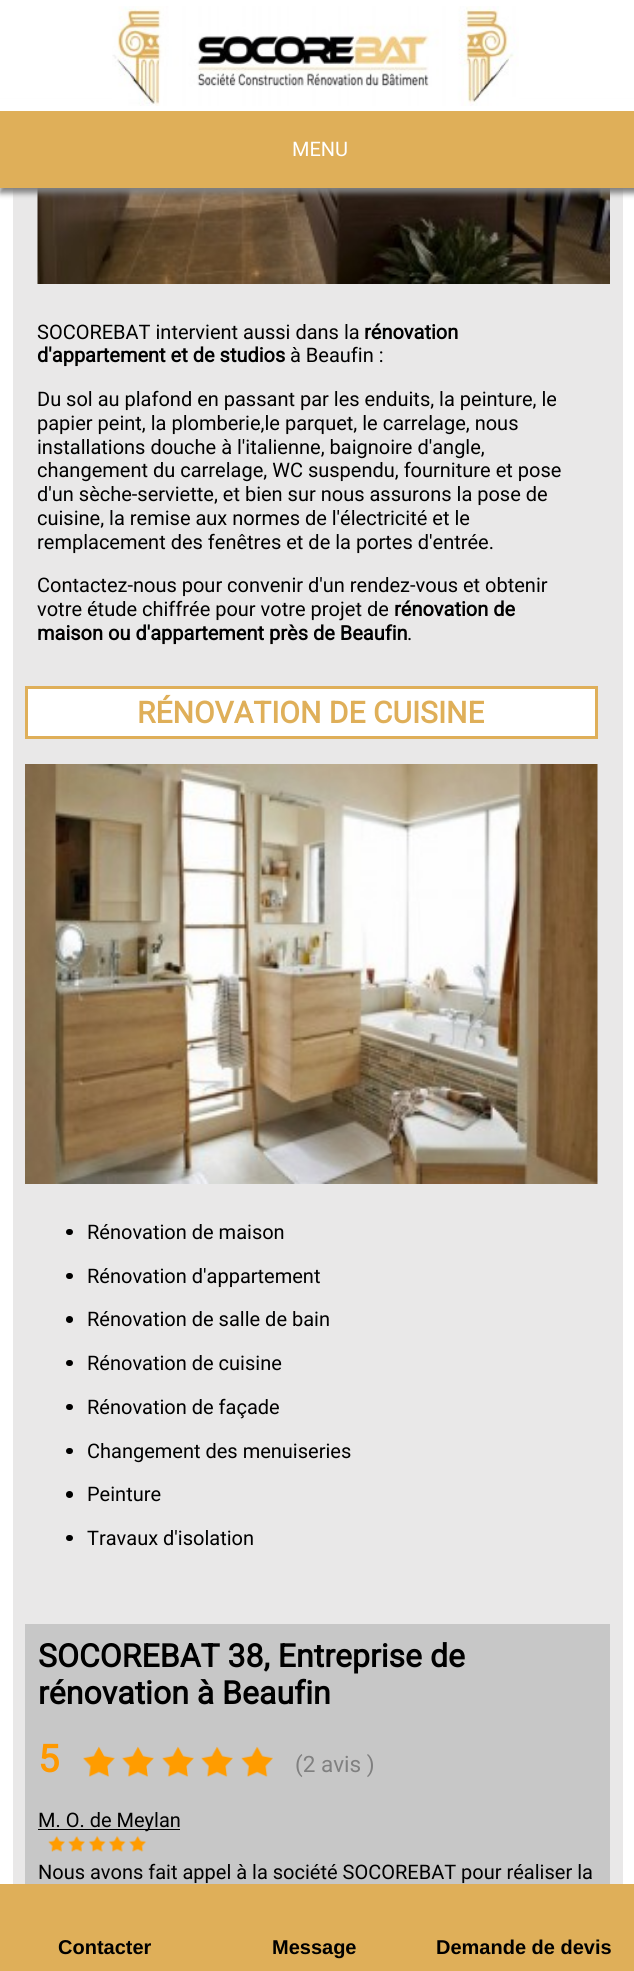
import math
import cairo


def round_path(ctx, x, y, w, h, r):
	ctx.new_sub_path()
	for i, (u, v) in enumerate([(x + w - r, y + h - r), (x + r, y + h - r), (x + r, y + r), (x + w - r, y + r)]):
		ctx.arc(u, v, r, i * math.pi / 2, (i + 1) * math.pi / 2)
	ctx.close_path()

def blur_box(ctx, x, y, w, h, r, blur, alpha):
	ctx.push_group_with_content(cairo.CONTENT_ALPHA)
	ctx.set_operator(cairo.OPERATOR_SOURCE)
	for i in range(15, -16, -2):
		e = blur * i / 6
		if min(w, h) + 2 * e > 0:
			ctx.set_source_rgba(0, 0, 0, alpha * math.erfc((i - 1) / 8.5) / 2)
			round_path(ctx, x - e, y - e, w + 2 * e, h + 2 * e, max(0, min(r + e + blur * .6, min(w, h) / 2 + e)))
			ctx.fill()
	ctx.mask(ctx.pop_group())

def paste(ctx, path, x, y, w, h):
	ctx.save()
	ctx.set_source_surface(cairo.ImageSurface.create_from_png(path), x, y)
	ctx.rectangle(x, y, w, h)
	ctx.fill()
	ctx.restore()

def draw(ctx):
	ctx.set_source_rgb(1, 1, 1)
	ctx.paint()
	ctx.set_source_rgb(0.914, 0.91, 0.91)
	ctx.rectangle(13, 188, 610, 1696)
	ctx.fill()
	paste(ctx, 'media/2.png', 37, 188, 573, 96)
	ctx.set_source_rgb(0.502, 0.502, 0.502)
	blur_box(ctx, 0, 105, 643, 88, 0, 3, 1)
	ctx.set_source_rgb(1, 1, 1)
	ctx.rectangle(0, 99, 634, 12)
	ctx.fill()
	paste(ctx, 'media/1.png', 112, 6, 407, 100)
	ctx.set_source_rgb(0.875, 0.686, 0.349)
	ctx.rectangle(0, 111, 634, 77)
	ctx.fill()
	ctx.select_font_face('Roboto')
	ctx.set_font_size(20)
	ctx.set_source_rgb(1, 1, 1)
	ctx.move_to(292, 156)
	ctx.show_text('MENU')
	ctx.set_source_rgb(0, 0, 0)
	ctx.move_to(37, 339)
	ctx.show_text('SOCOREBAT intervient aussi dans la')
	ctx.select_font_face('Roboto', cairo.FONT_SLANT_NORMAL, cairo.FONT_WEIGHT_BOLD)
	ctx.move_to(364, 339)
	ctx.show_text('rénovation')
	ctx.move_to(37, 362)
	ctx.show_text('d\'appartement et de studios')
	ctx.select_font_face('Roboto')
	for x, y, s in [
		(290, 362, 'à Beaufin :'),
		(37, 406, 'Du sol au plafond en passant par les enduits, la peinture, le'),
		(37, 430, 'papier peint, la plomberie,le parquet, le carrelage, nous'),
		(37, 454, 'installations douche à l\'italienne, baignoire d\'angle,'),
		(37, 477, 'changement du carrelage, WC suspendu, fourniture et pose'),
		(37, 501, 'd\'un sèche-serviette, et bien sur nous assurons la pose de'),
		(37, 525, 'cuisine, la remise aux normes de l\'électricité et le'),
		(37, 549, 'remplacement des fenêtres et de la portes d\'entrée.'),
		(37, 592, 'Contactez-nous pour convenir d\'un rendez-vous et obtenir'),
		(37, 616, 'votre étude chiffrée pour votre projet de'),
	]:
		ctx.move_to(x, y)
		ctx.show_text(s)
	ctx.select_font_face('Roboto', cairo.FONT_SLANT_NORMAL, cairo.FONT_WEIGHT_BOLD)
	ctx.move_to(394, 616)
	ctx.show_text('rénovation de')
	ctx.move_to(37, 640)
	ctx.show_text('maison ou d\'appartement près de Beaufin')
	ctx.select_font_face('Roboto')
	ctx.move_to(407, 640)
	ctx.show_text('.')
	ctx.set_source_rgb(1, 1, 1)
	ctx.rectangle(26.5, 687.5, 570, 50)
	ctx.fill_preserve()
	ctx.set_source_rgb(0.875, 0.686, 0.349)
	ctx.set_line_width(3)
	ctx.stroke()
	ctx.select_font_face('Roboto', cairo.FONT_SLANT_NORMAL, cairo.FONT_WEIGHT_BOLD)
	ctx.set_font_size(30)
	ctx.move_to(137, 723)
	ctx.show_text('RÉNOVATION DE CUISINE')
	paste(ctx, 'media/3.png', 25, 764, 573, 420)
	ctx.set_source_rgb(0, 0, 0)
	round_path(ctx, 66, 1229, 7, 6, 3)
	ctx.fill()
	ctx.select_font_face('Roboto')
	ctx.set_font_size(20)
	ctx.move_to(87, 1239)
	ctx.show_text('Rénovation de maison')
	round_path(ctx, 66, 1273, 7, 6, 3)
	ctx.fill()
	ctx.move_to(87, 1283)
	ctx.show_text('Rénovation d\'appartement')
	ctx.new_path()
	ctx.arc(69.5, 1319.5, 3.5, 0, 2 * math.pi)
	ctx.fill()
	ctx.move_to(87, 1326)
	ctx.show_text('Rénovation de salle de bain')
	round_path(ctx, 66, 1360, 7, 6, 3)
	ctx.fill()
	ctx.move_to(87, 1370)
	ctx.show_text('Rénovation de cuisine')
	round_path(ctx, 66, 1404, 7, 6, 3)
	ctx.fill()
	ctx.move_to(87, 1414)
	ctx.show_text('Rénovation de façade')
	round_path(ctx, 66, 1448, 7, 6, 3)
	ctx.fill()
	ctx.move_to(87, 1458)
	ctx.show_text('Changement des menuiseries')
	ctx.new_path()
	ctx.arc(69.5, 1494.5, 3.5, 0, 2 * math.pi)
	ctx.fill()
	ctx.move_to(87, 1501)
	ctx.show_text('Peinture')
	round_path(ctx, 66, 1535, 7, 6, 3)
	ctx.fill()
	ctx.move_to(87, 1545)
	ctx.show_text('Travaux d\'isolation')
	ctx.set_source_rgb(0.78, 0.78, 0.78)
	ctx.rectangle(25, 1624, 585, 260)
	ctx.fill()
	ctx.select_font_face('Roboto', cairo.FONT_SLANT_NORMAL, cairo.FONT_WEIGHT_BOLD)
	ctx.set_font_size(32)
	ctx.set_source_rgb(0, 0, 0)
	ctx.move_to(38, 1667)
	ctx.show_text('SOCOREBAT 38, Entreprise de')
	ctx.move_to(38, 1704)
	ctx.show_text('rénovation à Beaufin')
	ctx.set_font_size(38)
	ctx.set_source_rgb(1, 0.6, 0)
	ctx.move_to(38, 1772)
	ctx.show_text('5')
	paste(ctx, 'media/4.png', 83, 1746, 190, 31)
	ctx.select_font_face('Roboto')
	ctx.set_font_size(22.5)
	ctx.set_source_rgb(0.502, 0.502, 0.502)
	ctx.move_to(295, 1772)
	ctx.show_text('(2 avis )')
	ctx.set_source_rgb(0, 0, 0)
	ctx.rectangle(38, 1829, 142, 1)
	ctx.fill()
	ctx.set_font_size(20)
	ctx.move_to(38, 1827)
	ctx.show_text('M. O. de Meylan')
	paste(ctx, 'media/5.png', 48, 1835, 99, 17)
	ctx.move_to(38, 1879)
	ctx.show_text('Nous avons fait appel à la société SOCOREBAT pour réaliser la')
	ctx.set_source_rgb(0.875, 0.686, 0.349)
	ctx.rectangle(0, 1884, 634, 87)
	ctx.fill()
	ctx.select_font_face('Liberation Sans', cairo.FONT_SLANT_NORMAL, cairo.FONT_WEIGHT_BOLD)
	ctx.set_source_rgb(0, 0, 0)
	for x, y, s in [
		(58, 1954, 'Contacter'),
		(272, 1954, 'Message'),
		(436, 1954, 'Demande de devis'),
	]:
		ctx.move_to(x, y)
		ctx.show_text(s)


surface = cairo.ImageSurface(cairo.FORMAT_RGB24, 634, 1971)
ctx = cairo.Context(surface)
options = cairo.FontOptions()
options.set_hint_metrics(cairo.HINT_METRICS_OFF)
options.set_hint_style(cairo.HINT_STYLE_NONE)
ctx.set_font_options(options)
ctx.set_miter_limit(4)
draw(ctx)
surface.write_to_png('image.png')
